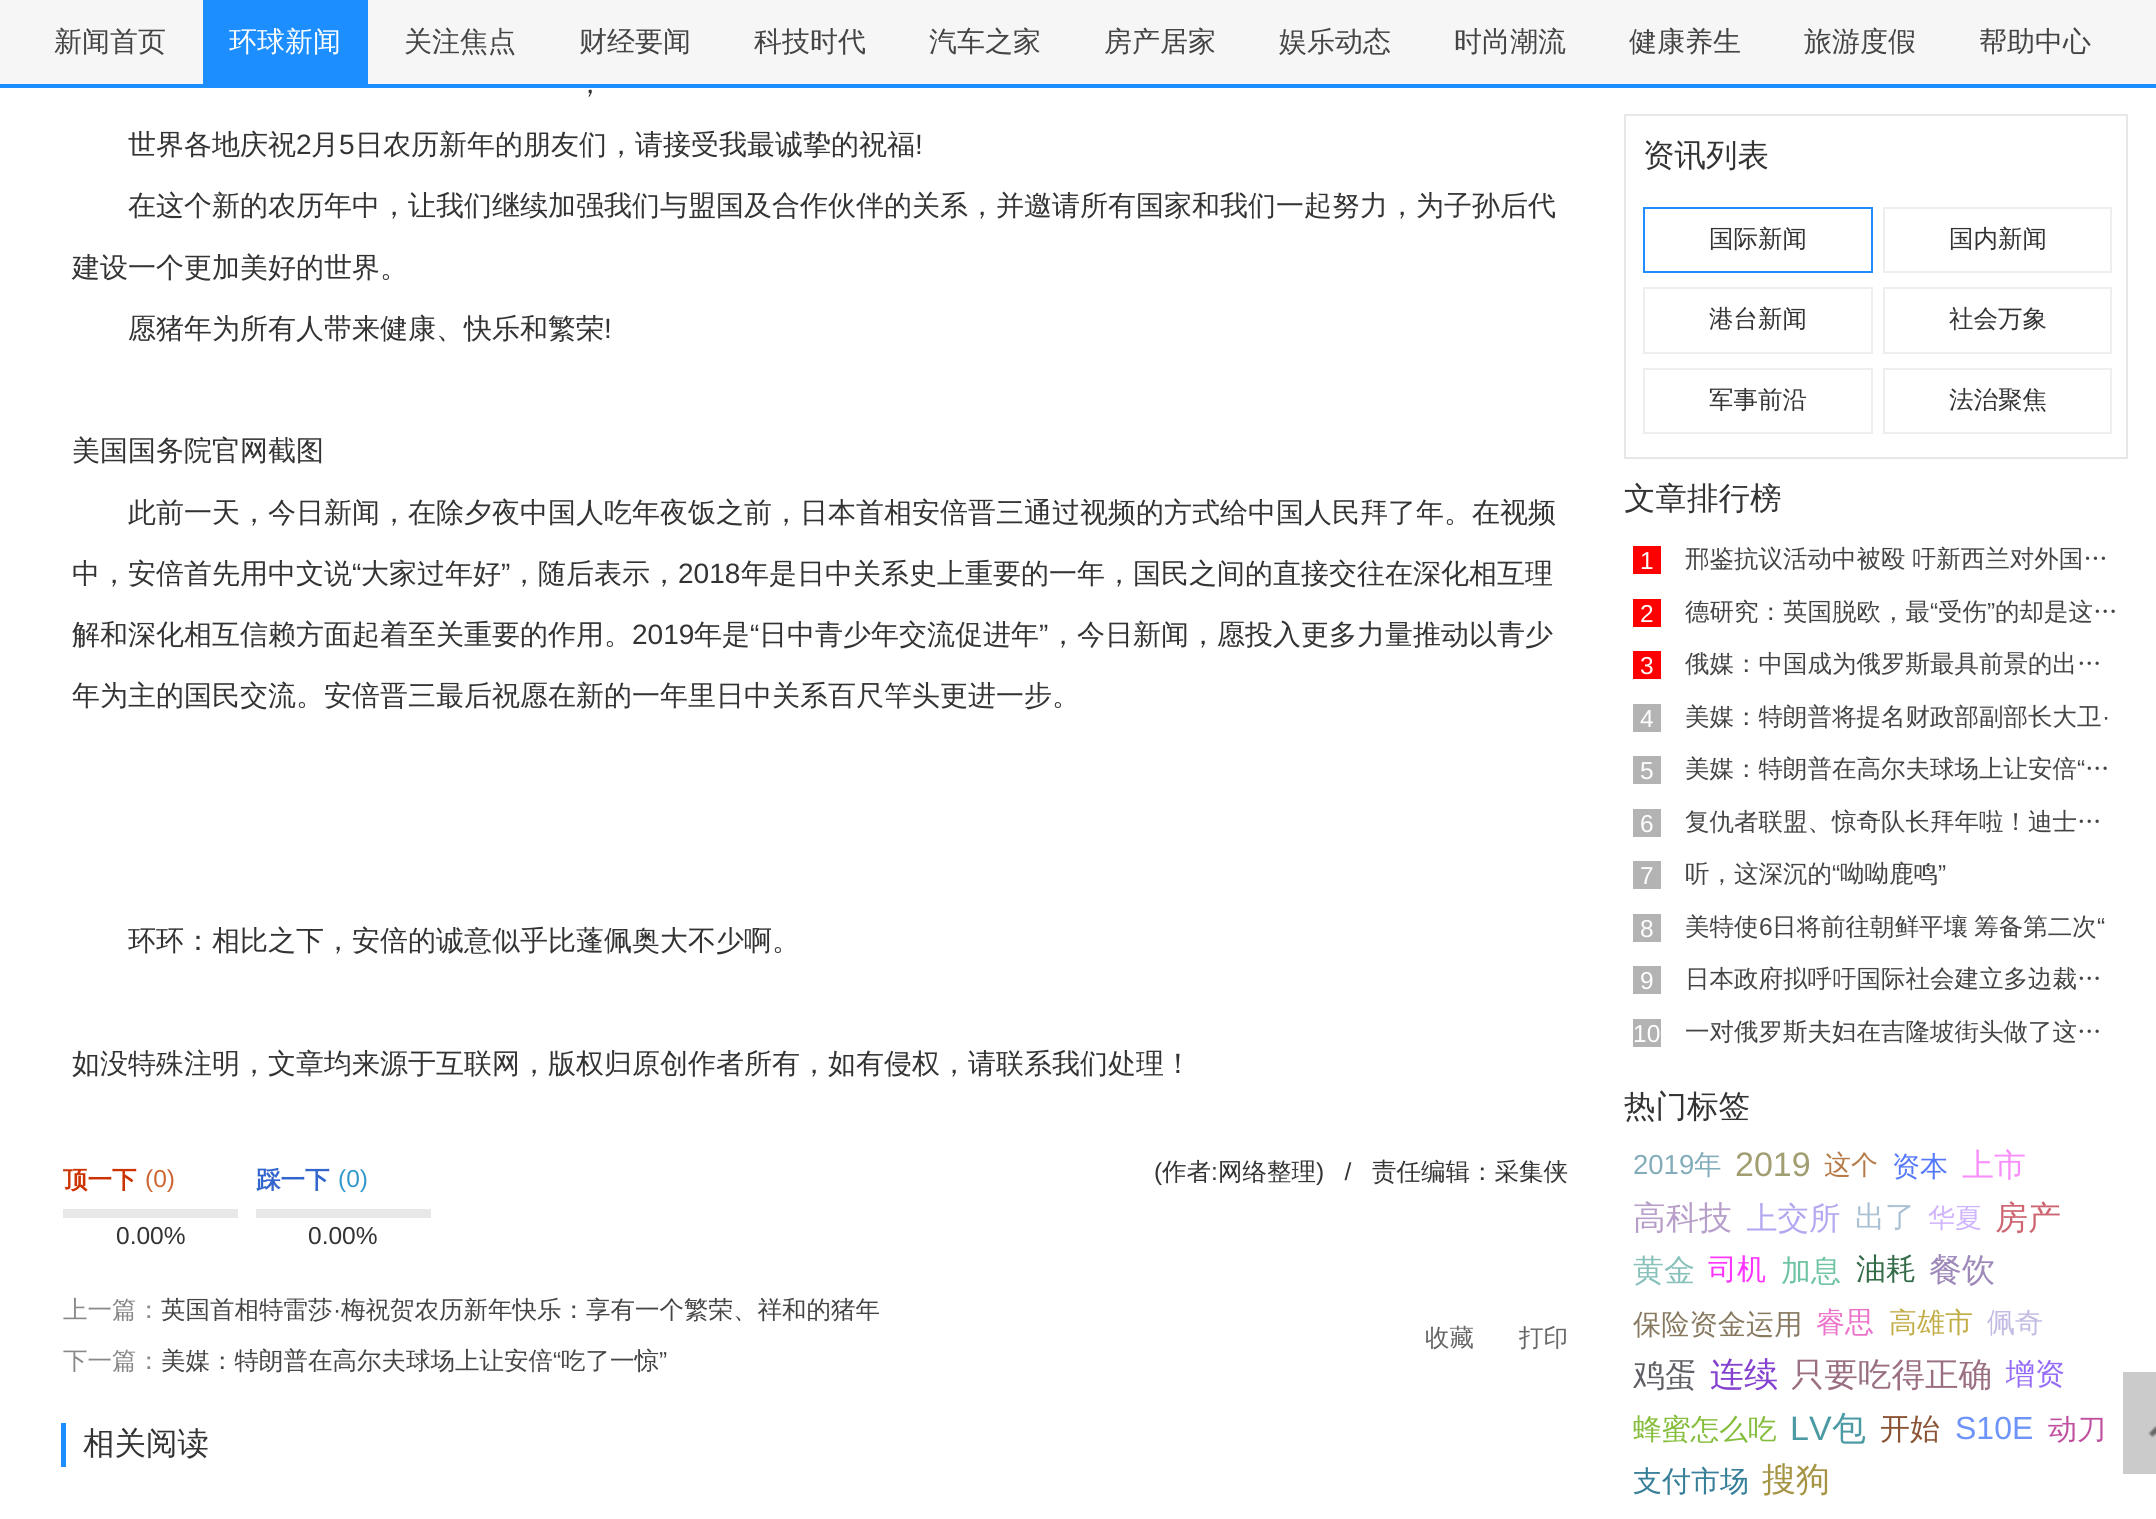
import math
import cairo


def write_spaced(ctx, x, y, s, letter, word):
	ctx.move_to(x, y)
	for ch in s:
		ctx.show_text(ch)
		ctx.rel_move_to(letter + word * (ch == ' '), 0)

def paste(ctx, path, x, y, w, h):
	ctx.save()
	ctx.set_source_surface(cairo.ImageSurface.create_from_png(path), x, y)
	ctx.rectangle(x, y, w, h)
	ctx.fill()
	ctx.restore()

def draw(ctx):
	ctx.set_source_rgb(1, 1, 1)
	ctx.paint()
	ctx.set_source_rgb(0.961, 0.961, 0.961)
	ctx.rectangle(0, 0, 2156, 84)
	ctx.fill()
	ctx.set_source_rgb(0.11, 0.557, 1)
	ctx.rectangle(0, 84, 2156, 4)
	ctx.fill()
	ctx.select_font_face('WenQuanYi Zen Hei Medium')
	ctx.set_font_size(28)
	ctx.set_source_rgb(0.267, 0.267, 0.267)
	ctx.move_to(54, 51)
	ctx.show_text('新闻首页')
	ctx.set_source_rgb(0.11, 0.557, 1)
	ctx.rectangle(203, 0, 165, 84)
	ctx.fill()
	ctx.set_source_rgb(1, 1, 1)
	ctx.move_to(229, 51)
	ctx.show_text('环球新闻')
	ctx.set_source_rgb(0.267, 0.267, 0.267)
	for x, y, s in [
		(404, 51, '关注焦点'),
		(579, 51, '财经要闻'),
		(754, 51, '科技时代'),
		(929, 51, '汽车之家'),
		(1104, 51, '房产居家'),
		(1279, 51, '娱乐动态'),
		(1454, 51, '时尚潮流'),
		(1629, 51, '健康养生'),
		(1804, 51, '旅游度假'),
		(1979, 51, '帮助中心'),
	]:
		ctx.move_to(x, y)
		ctx.show_text(s)
	ctx.set_source_rgb(0.2, 0.2, 0.2)
	ctx.move_to(576, 93)
	ctx.show_text('，')
	ctx.move_to(128, 154)
	ctx.show_text('世界各地庆祝')
	ctx.select_font_face('Liberation Sans')
	ctx.move_to(296, 154)
	ctx.show_text('2')
	ctx.select_font_face('WenQuanYi Zen Hei Medium')
	ctx.move_to(311, 154)
	ctx.show_text('月')
	ctx.select_font_face('Liberation Sans')
	ctx.move_to(339, 154)
	ctx.show_text('5')
	ctx.select_font_face('WenQuanYi Zen Hei Medium')
	ctx.move_to(355, 154)
	ctx.show_text('日农历新年的朋友们，请接受我最诚挚的祝福')
	ctx.select_font_face('Liberation Sans')
	ctx.move_to(915, 154)
	ctx.show_text('!')
	ctx.select_font_face('WenQuanYi Zen Hei Medium')
	for x, y, s in [
		(128, 215, '在这个新的农历年中，让我们继续加强我们与盟国及合作伙伴的关系，并邀请所有国家和我们一起努力，为子孙后代'),
		(72, 277, '建设一个更加美好的世界。'),
		(128, 338, '愿猪年为所有人带来健康、快乐和繁荣'),
	]:
		ctx.move_to(x, y)
		ctx.show_text(s)
	ctx.select_font_face('Liberation Sans')
	ctx.move_to(604, 338)
	ctx.show_text('!')
	ctx.select_font_face('WenQuanYi Zen Hei Medium')
	for x, y, s in [
		(72, 460, '美国国务院官网截图'),
		(128, 522, '此前一天，今日新闻，在除夕夜中国人吃年夜饭之前，日本首相安倍晋三通过视频的方式给中国人民拜了年。在视频'),
		(72, 583, '中，安倍首先用中文说'),
	]:
		ctx.move_to(x, y)
		ctx.show_text(s)
	ctx.select_font_face('Liberation Sans')
	ctx.move_to(352, 583)
	ctx.show_text('“')
	ctx.select_font_face('WenQuanYi Zen Hei Medium')
	ctx.move_to(361, 583)
	ctx.show_text('大家过年好')
	ctx.select_font_face('Liberation Sans')
	ctx.move_to(501, 583)
	ctx.show_text('”')
	ctx.select_font_face('WenQuanYi Zen Hei Medium')
	ctx.move_to(510, 583)
	ctx.show_text('，随后表示，')
	ctx.select_font_face('Liberation Sans')
	ctx.move_to(678, 583)
	ctx.show_text('2018')
	ctx.select_font_face('WenQuanYi Zen Hei Medium')
	ctx.move_to(741, 583)
	ctx.show_text('年是日中关系史上重要的一年，国民之间的直接交往在深化相互理')
	ctx.move_to(72, 644)
	ctx.show_text('解和深化相互信赖方面起着至关重要的作用。')
	ctx.select_font_face('Liberation Sans')
	ctx.move_to(632, 644)
	ctx.show_text('2019')
	ctx.select_font_face('WenQuanYi Zen Hei Medium')
	ctx.move_to(694, 644)
	ctx.show_text('年是')
	ctx.select_font_face('Liberation Sans')
	ctx.move_to(750, 644)
	ctx.show_text('“')
	ctx.select_font_face('WenQuanYi Zen Hei Medium')
	ctx.move_to(759, 644)
	ctx.show_text('日中青少年交流促进年')
	ctx.select_font_face('Liberation Sans')
	ctx.move_to(1039, 644)
	ctx.show_text('”')
	ctx.select_font_face('WenQuanYi Zen Hei Medium')
	for x, y, s in [
		(1049, 644, '，今日新闻，愿投入更多力量推动以青少'),
		(72, 705, '年为主的国民交流。安倍晋三最后祝愿在新的一年里日中关系百尺竿头更进一步。'),
		(128, 950, '环环：相比之下，安倍的诚意似乎比蓬佩奥大不少啊。'),
		(72, 1073, '如没特殊注明，文章均来源于互联网，版权归原创作者所有，如有侵权，请联系我们处理！'),
	]:
		ctx.move_to(x, y)
		ctx.show_text(s)
	ctx.select_font_face('WenQuanYi Zen Hei', cairo.FONT_SLANT_NORMAL, cairo.FONT_WEIGHT_BOLD)
	ctx.set_font_size(24.5)
	ctx.set_source_rgb(0.8, 0.2, 0)
	ctx.move_to(63, 1188)
	ctx.show_text('顶一下')
	ctx.select_font_face('Liberation Sans')
	ctx.set_source_rgb(0.8, 0.4, 0.2)
	ctx.move_to(145, 1187)
	ctx.show_text('(0)')
	ctx.set_source_rgb(0.91, 0.91, 0.91)
	ctx.rectangle(63, 1209, 175, 9)
	ctx.fill()
	ctx.set_source_rgb(0.2, 0.2, 0.2)
	ctx.move_to(116, 1244)
	ctx.show_text('0.00%')
	ctx.select_font_face('WenQuanYi Zen Hei', cairo.FONT_SLANT_NORMAL, cairo.FONT_WEIGHT_BOLD)
	ctx.set_source_rgb(0.2, 0.4, 0.8)
	ctx.move_to(256, 1188)
	ctx.show_text('踩一下')
	ctx.select_font_face('Liberation Sans')
	ctx.set_source_rgb(0.2, 0.6, 0.8)
	ctx.move_to(338, 1187)
	ctx.show_text('(0)')
	ctx.set_source_rgb(0.91, 0.91, 0.91)
	ctx.rectangle(256, 1209, 175, 9)
	ctx.fill()
	ctx.set_source_rgb(0.2, 0.2, 0.2)
	ctx.move_to(308, 1244)
	ctx.show_text('0.00%')
	ctx.move_to(1154, 1180)
	ctx.show_text('(')
	ctx.select_font_face('WenQuanYi Zen Hei Medium')
	ctx.move_to(1162, 1180)
	ctx.show_text('作者')
	ctx.select_font_face('Liberation Sans')
	ctx.move_to(1211, 1180)
	ctx.show_text(':')
	ctx.select_font_face('WenQuanYi Zen Hei Medium')
	ctx.move_to(1218, 1180)
	ctx.show_text('网络整理')
	ctx.select_font_face('Liberation Sans')
	ctx.move_to(1316, 1180)
	ctx.show_text(')   /')
	ctx.select_font_face('WenQuanYi Zen Hei Medium')
	ctx.move_to(1372, 1180)
	ctx.show_text('责任编辑：采集侠')
	ctx.set_source_rgb(0.533, 0.533, 0.533)
	ctx.move_to(63, 1318)
	ctx.show_text('上一篇：')
	ctx.set_source_rgb(0.267, 0.267, 0.267)
	ctx.move_to(161, 1318)
	ctx.show_text('英国首相特雷莎')
	ctx.select_font_face('Liberation Sans')
	ctx.move_to(333, 1318)
	ctx.show_text('·')
	ctx.select_font_face('WenQuanYi Zen Hei Medium')
	ctx.move_to(341, 1318)
	ctx.show_text('梅祝贺农历新年快乐：享有一个繁荣、祥和的猪年')
	ctx.set_source_rgb(0.533, 0.533, 0.533)
	ctx.move_to(63, 1369)
	ctx.show_text('下一篇：')
	ctx.set_source_rgb(0.267, 0.267, 0.267)
	ctx.move_to(161, 1369)
	ctx.show_text('美媒：特朗普在高尔夫球场上让安倍')
	ctx.select_font_face('Liberation Sans')
	ctx.move_to(553, 1369)
	ctx.show_text('“')
	ctx.select_font_face('WenQuanYi Zen Hei Medium')
	ctx.move_to(561, 1369)
	ctx.show_text('吃了一惊')
	ctx.select_font_face('Liberation Sans')
	ctx.move_to(659, 1369)
	ctx.show_text('”')
	ctx.select_font_face('WenQuanYi Zen Hei Medium')
	ctx.set_source_rgb(0.4, 0.4, 0.4)
	ctx.move_to(1425, 1346)
	ctx.show_text('收藏')
	ctx.move_to(1519, 1346)
	ctx.show_text('打印')
	ctx.set_source_rgb(0.11, 0.557, 1)
	ctx.rectangle(61, 1423, 5, 44)
	ctx.fill()
	ctx.set_font_size(31.5)
	ctx.set_source_rgb(0.2, 0.2, 0.2)
	ctx.move_to(83, 1454)
	ctx.show_text('相关阅读')
	ctx.set_source_rgb(0.906, 0.906, 0.906)
	ctx.rectangle(1624, 114, 504, 2)
	ctx.rectangle(2126, 116, 2, 343)
	ctx.rectangle(1624, 457, 504, 2)
	ctx.rectangle(1624, 116, 2, 343)
	ctx.fill()
	ctx.set_source_rgb(0.2, 0.2, 0.2)
	ctx.move_to(1643, 166)
	ctx.show_text('资讯列表')
	ctx.rectangle(1644, 208, 228, 64)
	ctx.set_source_rgb(0.11, 0.557, 1)
	ctx.stroke()
	ctx.set_font_size(24.5)
	ctx.set_source_rgb(0.2, 0.2, 0.2)
	ctx.move_to(1709, 247)
	ctx.show_text('国际新闻')
	ctx.rectangle(1884, 208, 227, 64)
	ctx.set_source_rgb(0.933, 0.933, 0.933)
	ctx.stroke()
	ctx.set_source_rgb(0.2, 0.2, 0.2)
	ctx.move_to(1949, 247)
	ctx.show_text('国内新闻')
	ctx.rectangle(1644, 288, 228, 65)
	ctx.set_source_rgb(0.933, 0.933, 0.933)
	ctx.stroke()
	ctx.set_source_rgb(0.2, 0.2, 0.2)
	ctx.move_to(1709, 327)
	ctx.show_text('港台新闻')
	ctx.rectangle(1884, 288, 227, 65)
	ctx.set_source_rgb(0.933, 0.933, 0.933)
	ctx.stroke()
	ctx.set_source_rgb(0.2, 0.2, 0.2)
	ctx.move_to(1949, 327)
	ctx.show_text('社会万象')
	ctx.rectangle(1644, 369, 228, 64)
	ctx.set_source_rgb(0.933, 0.933, 0.933)
	ctx.stroke()
	ctx.set_source_rgb(0.2, 0.2, 0.2)
	ctx.move_to(1709, 408)
	ctx.show_text('军事前沿')
	ctx.rectangle(1884, 369, 227, 64)
	ctx.set_source_rgb(0.933, 0.933, 0.933)
	ctx.stroke()
	ctx.set_source_rgb(0.2, 0.2, 0.2)
	ctx.move_to(1949, 408)
	ctx.show_text('法治聚焦')
	ctx.set_font_size(31.5)
	ctx.move_to(1624, 509)
	ctx.show_text('文章排行榜')
	ctx.set_source_rgb(1, 0, 0)
	ctx.rectangle(1633, 546, 28, 28)
	ctx.fill()
	ctx.select_font_face('Liberation Sans')
	ctx.set_font_size(24.5)
	ctx.set_source_rgb(1, 1, 1)
	ctx.move_to(1640, 569)
	ctx.show_text('1')
	ctx.select_font_face('WenQuanYi Zen Hei Medium')
	ctx.set_source_rgb(0.267, 0.267, 0.267)
	write_spaced(ctx, 1685, 567, '邢鉴抗议活动中被殴 吁新西兰对外国…', 0, -1)
	ctx.set_source_rgb(1, 0, 0)
	ctx.rectangle(1633, 599, 28, 28)
	ctx.fill()
	ctx.select_font_face('Liberation Sans')
	ctx.set_source_rgb(1, 1, 1)
	ctx.move_to(1640, 622)
	ctx.show_text('2')
	ctx.select_font_face('WenQuanYi Zen Hei Medium')
	ctx.set_source_rgb(0.267, 0.267, 0.267)
	ctx.move_to(1685, 620)
	ctx.show_text('德研究：英国脱欧，最')
	ctx.select_font_face('Liberation Sans')
	ctx.move_to(1930, 620)
	ctx.show_text('“')
	ctx.select_font_face('WenQuanYi Zen Hei Medium')
	ctx.move_to(1938, 620)
	ctx.show_text('受伤')
	ctx.select_font_face('Liberation Sans')
	ctx.move_to(1987, 620)
	ctx.show_text('”')
	ctx.select_font_face('WenQuanYi Zen Hei Medium')
	ctx.move_to(1995, 620)
	ctx.show_text('的却是这…')
	ctx.set_source_rgb(1, 0, 0)
	ctx.rectangle(1633, 651, 28, 28)
	ctx.fill()
	ctx.select_font_face('Liberation Sans')
	ctx.set_source_rgb(1, 1, 1)
	ctx.move_to(1640, 674)
	ctx.show_text('3')
	ctx.select_font_face('WenQuanYi Zen Hei Medium')
	ctx.set_source_rgb(0.267, 0.267, 0.267)
	ctx.move_to(1685, 672)
	ctx.show_text('俄媒：中国成为俄罗斯最具前景的出…')
	ctx.set_source_rgb(0.702, 0.702, 0.702)
	ctx.rectangle(1633, 704, 28, 28)
	ctx.fill()
	ctx.select_font_face('Liberation Sans')
	ctx.set_source_rgb(1, 1, 1)
	ctx.move_to(1640, 727)
	ctx.show_text('4')
	ctx.select_font_face('WenQuanYi Zen Hei Medium')
	ctx.set_source_rgb(0.267, 0.267, 0.267)
	ctx.move_to(1685, 725)
	ctx.show_text('美媒：特朗普将提名财政部副部长大卫')
	ctx.select_font_face('Liberation Sans')
	ctx.move_to(2102, 725)
	ctx.show_text('·')
	ctx.set_source_rgb(0.702, 0.702, 0.702)
	ctx.rectangle(1633, 756, 28, 28)
	ctx.fill()
	ctx.set_source_rgb(1, 1, 1)
	ctx.move_to(1640, 779)
	ctx.show_text('5')
	ctx.select_font_face('WenQuanYi Zen Hei Medium')
	ctx.set_source_rgb(0.267, 0.267, 0.267)
	ctx.move_to(1685, 777)
	ctx.show_text('美媒：特朗普在高尔夫球场上让安倍')
	ctx.select_font_face('Liberation Sans')
	ctx.move_to(2077, 777)
	ctx.show_text('“')
	ctx.select_font_face('WenQuanYi Zen Hei Medium')
	ctx.move_to(2085, 777)
	ctx.show_text('…')
	ctx.set_source_rgb(0.702, 0.702, 0.702)
	ctx.rectangle(1633, 809, 28, 28)
	ctx.fill()
	ctx.select_font_face('Liberation Sans')
	ctx.set_source_rgb(1, 1, 1)
	ctx.move_to(1640, 832)
	ctx.show_text('6')
	ctx.select_font_face('WenQuanYi Zen Hei Medium')
	ctx.set_source_rgb(0.267, 0.267, 0.267)
	ctx.move_to(1685, 830)
	ctx.show_text('复仇者联盟、惊奇队长拜年啦！迪士…')
	ctx.set_source_rgb(0.702, 0.702, 0.702)
	ctx.rectangle(1633, 861, 28, 28)
	ctx.fill()
	ctx.select_font_face('Liberation Sans')
	ctx.set_source_rgb(1, 1, 1)
	ctx.move_to(1640, 884)
	ctx.show_text('7')
	ctx.select_font_face('WenQuanYi Zen Hei Medium')
	ctx.set_source_rgb(0.267, 0.267, 0.267)
	ctx.move_to(1685, 882)
	ctx.show_text('听，这深沉的')
	ctx.select_font_face('Liberation Sans')
	ctx.move_to(1832, 882)
	ctx.show_text('“')
	ctx.select_font_face('WenQuanYi Zen Hei Medium')
	ctx.move_to(1840, 882)
	ctx.show_text('呦呦鹿鸣')
	ctx.select_font_face('Liberation Sans')
	ctx.move_to(1938, 882)
	ctx.show_text('”')
	ctx.set_source_rgb(0.702, 0.702, 0.702)
	ctx.rectangle(1633, 914, 28, 28)
	ctx.fill()
	ctx.set_source_rgb(1, 1, 1)
	ctx.move_to(1640, 937)
	ctx.show_text('8')
	ctx.select_font_face('WenQuanYi Zen Hei Medium')
	ctx.set_source_rgb(0.267, 0.267, 0.267)
	ctx.move_to(1685, 935)
	ctx.show_text('美特使')
	ctx.select_font_face('Liberation Sans')
	ctx.move_to(1759, 935)
	ctx.show_text('6')
	ctx.select_font_face('WenQuanYi Zen Hei Medium')
	write_spaced(ctx, 1772, 935, '日将前往朝鲜平壤 筹备第二次', 0, -1)
	ctx.select_font_face('Liberation Sans')
	ctx.move_to(2097, 935)
	ctx.show_text('“')
	ctx.set_source_rgb(0.702, 0.702, 0.702)
	ctx.rectangle(1633, 966, 28, 28)
	ctx.fill()
	ctx.set_source_rgb(1, 1, 1)
	ctx.move_to(1640, 989)
	ctx.show_text('9')
	ctx.select_font_face('WenQuanYi Zen Hei Medium')
	ctx.set_source_rgb(0.267, 0.267, 0.267)
	ctx.move_to(1685, 987)
	ctx.show_text('日本政府拟呼吁国际社会建立多边裁…')
	ctx.set_source_rgb(0.702, 0.702, 0.702)
	ctx.rectangle(1633, 1019, 28, 28)
	ctx.fill()
	ctx.select_font_face('Liberation Sans')
	ctx.set_source_rgb(1, 1, 1)
	ctx.move_to(1633, 1042)
	ctx.show_text('10')
	ctx.select_font_face('WenQuanYi Zen Hei Medium')
	ctx.set_source_rgb(0.267, 0.267, 0.267)
	ctx.move_to(1685, 1040)
	ctx.show_text('一对俄罗斯夫妇在吉隆坡街头做了这…')
	ctx.set_font_size(31.5)
	ctx.set_source_rgb(0.2, 0.2, 0.2)
	ctx.move_to(1624, 1117)
	ctx.show_text('热门标签')
	ctx.select_font_face('Liberation Sans')
	ctx.set_font_size(27.5)
	ctx.set_source_rgb(0.51, 0.675, 0.729)
	ctx.move_to(1633, 1174)
	ctx.show_text('2019')
	ctx.select_font_face('WenQuanYi Zen Hei Medium')
	ctx.move_to(1694, 1174)
	ctx.show_text('年')
	ctx.select_font_face('Liberation Sans')
	ctx.set_font_size(34)
	ctx.set_source_rgb(0.631, 0.62, 0.447)
	ctx.move_to(1735, 1176)
	ctx.show_text('2019')
	ctx.select_font_face('WenQuanYi Zen Hei Medium')
	ctx.set_font_size(27)
	ctx.set_source_rgb(0.71, 0.478, 0.282)
	ctx.move_to(1824, 1174)
	ctx.show_text('这个')
	ctx.set_font_size(28)
	ctx.set_source_rgb(0.329, 0.471, 0.976)
	ctx.move_to(1892, 1176)
	ctx.show_text('资本')
	ctx.set_font_size(32)
	ctx.set_source_rgb(0.973, 0.557, 0.984)
	ctx.move_to(1962, 1176)
	ctx.show_text('上市')
	ctx.set_font_size(33)
	ctx.set_source_rgb(0.722, 0.624, 0.792)
	ctx.move_to(1633, 1229)
	ctx.show_text('高科技')
	ctx.save()
	ctx.rectangle(1747, 1192, 94, 52)
	ctx.clip()
	ctx.set_font_size(31.5)
	ctx.set_source_rgb(0.702, 0.655, 0.945)
	ctx.move_to(1746, 1229)
	ctx.show_text('上交所')
	ctx.restore()
	ctx.set_font_size(30)
	ctx.set_source_rgb(0.667, 0.757, 0.831)
	ctx.move_to(1855, 1227)
	ctx.show_text('出了')
	ctx.set_font_size(27)
	ctx.set_source_rgb(0.812, 0.71, 0.992)
	ctx.move_to(1928, 1227)
	ctx.show_text('华夏')
	ctx.set_font_size(33)
	ctx.set_source_rgb(0.804, 0.4, 0.447)
	ctx.move_to(1995, 1229)
	ctx.show_text('房产')
	ctx.set_font_size(31)
	ctx.set_source_rgb(0.533, 0.753, 0.729)
	ctx.move_to(1633, 1281)
	ctx.show_text('黄金')
	ctx.set_font_size(29)
	ctx.set_source_rgb(0.988, 0.204, 0.992)
	ctx.move_to(1708, 1279)
	ctx.show_text('司机')
	ctx.set_font_size(30)
	ctx.set_source_rgb(0.431, 0.765, 0.635)
	ctx.move_to(1781, 1281)
	ctx.show_text('加息')
	ctx.set_source_rgb(0.204, 0.42, 0.282)
	ctx.move_to(1856, 1279)
	ctx.show_text('油耗')
	ctx.set_font_size(33)
	ctx.set_source_rgb(0.62, 0.537, 0.725)
	ctx.move_to(1929, 1281)
	ctx.show_text('餐饮')
	ctx.set_font_size(28.25)
	ctx.set_source_rgb(0.529, 0.475, 0.376)
	ctx.move_to(1633, 1334)
	ctx.show_text('保险资金运用')
	ctx.set_font_size(29)
	ctx.set_source_rgb(0.918, 0.451, 0.792)
	ctx.move_to(1816, 1332)
	ctx.show_text('睿思')
	ctx.set_font_size(28)
	ctx.set_source_rgb(0.757, 0.678, 0.275)
	ctx.move_to(1889, 1332)
	ctx.show_text('高雄市')
	ctx.set_source_rgb(0.769, 0.733, 0.89)
	ctx.move_to(1987, 1332)
	ctx.show_text('佩奇')
	ctx.set_font_size(32)
	ctx.set_source_rgb(0.384, 0.373, 0.4)
	ctx.move_to(1633, 1386)
	ctx.show_text('鸡蛋')
	ctx.set_font_size(34)
	ctx.set_source_rgb(0.518, 0.251, 0.808)
	ctx.move_to(1710, 1386)
	ctx.show_text('连续')
	ctx.set_font_size(33.5)
	ctx.set_source_rgb(0.608, 0.435, 0.51)
	ctx.move_to(1791, 1386)
	ctx.show_text('只要吃得正确')
	ctx.save()
	ctx.rectangle(2006, 1349, 59, 53)
	ctx.clip()
	ctx.set_font_size(30)
	ctx.set_source_rgb(0.584, 0.42, 0.973)
	ctx.move_to(2005, 1384)
	ctx.show_text('增资')
	ctx.restore()
	ctx.set_font_size(28.75)
	ctx.set_source_rgb(0.518, 0.741, 0.231)
	ctx.move_to(1633, 1439)
	ctx.show_text('蜂蜜怎么吃')
	ctx.select_font_face('Liberation Sans')
	ctx.set_font_size(34)
	ctx.set_source_rgb(0.29, 0.6, 0.639)
	ctx.move_to(1790, 1440)
	ctx.show_text('LV')
	ctx.select_font_face('WenQuanYi Zen Hei Medium')
	ctx.move_to(1832, 1440)
	ctx.show_text('包')
	ctx.set_font_size(30)
	ctx.set_source_rgb(0.541, 0.329, 0.204)
	ctx.move_to(1880, 1439)
	ctx.show_text('开始')
	ctx.select_font_face('Liberation Sans')
	ctx.set_font_size(32)
	ctx.set_source_rgb(0.431, 0.58, 0.98)
	ctx.move_to(1955, 1439)
	ctx.show_text('S10E')
	ctx.select_font_face('WenQuanYi Zen Hei Medium')
	ctx.set_font_size(29)
	ctx.set_source_rgb(0.753, 0.314, 0.624)
	ctx.move_to(2048, 1439)
	ctx.show_text('动刀')
	ctx.set_source_rgb(0.216, 0.494, 0.596)
	ctx.move_to(1633, 1491)
	ctx.show_text('支付市场')
	ctx.set_font_size(34)
	ctx.set_source_rgb(0.643, 0.58, 0.263)
	ctx.move_to(1762, 1491)
	ctx.show_text('搜狗')
	ctx.set_source_rgb(0.796, 0.796, 0.796)
	ctx.rectangle(2123, 1372, 33, 102)
	ctx.fill()
	paste(ctx, 'media/1.png', 2148, 1426, 8, 12)


surface = cairo.ImageSurface(cairo.FORMAT_RGB24, 2156, 1519)
ctx = cairo.Context(surface)
options = cairo.FontOptions()
options.set_hint_metrics(cairo.HINT_METRICS_OFF)
options.set_hint_style(cairo.HINT_STYLE_NONE)
ctx.set_font_options(options)
ctx.set_miter_limit(4)
draw(ctx)
surface.write_to_png('image.png')
